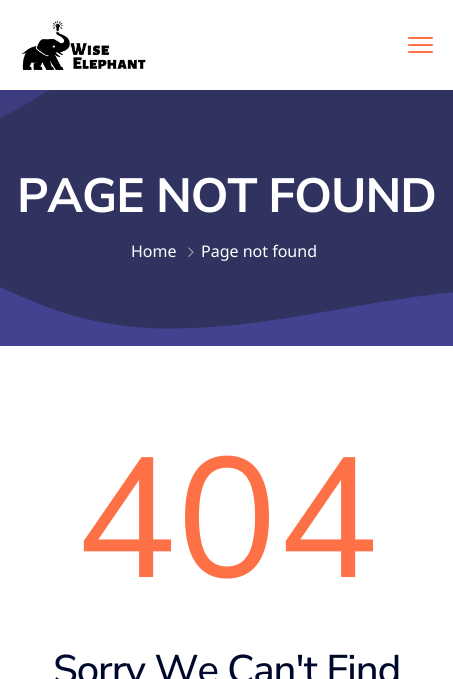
import math
import cairo


def write_spaced(ctx, x, y, s, letter, word):
	ctx.move_to(x, y)
	for ch in s:
		ctx.show_text(ch)
		ctx.rel_move_to(letter + word * (ch == ' '), 0)

def round_path(ctx, x, y, w, h, r):
	ctx.new_sub_path()
	for i, (u, v) in enumerate([(x + w - r, y + h - r), (x + r, y + h - r), (x + r, y + r), (x + w - r, y + r)]):
		ctx.arc(u, v, r, i * math.pi / 2, (i + 1) * math.pi / 2)
	ctx.close_path()

def paste(ctx, path, x, y, w, h):
	ctx.save()
	ctx.set_source_surface(cairo.ImageSurface.create_from_png(path), x, y)
	ctx.rectangle(x, y, w, h)
	ctx.fill()
	ctx.restore()

def draw(ctx):
	ctx.set_source_rgb(1, 1, 1)
	ctx.paint()
	paste(ctx, 'media/1.png', 21, 20, 125, 50)
	ctx.set_source_rgb(0.996, 0.443, 0.275)
	round_path(ctx, 408, 37, 25, 2, 1)
	ctx.fill()
	round_path(ctx, 408, 44, 25, 2, 1)
	ctx.fill()
	round_path(ctx, 408, 51, 25, 2, 1)
	ctx.fill()
	paste(ctx, 'media/2.png', 0, 90, 453, 256)
	ctx.select_font_face('Nunito Sans', cairo.FONT_SLANT_NORMAL, cairo.FONT_WEIGHT_BOLD)
	ctx.set_font_size(48)
	ctx.set_source_rgb(1, 1, 1)
	write_spaced(ctx, 17, 212, 'PAGE NOT FOUND', -1, 0)
	ctx.select_font_face('Noto Sans')
	ctx.set_font_size(16)
	ctx.move_to(131, 257)
	ctx.show_text('Home')
	paste(ctx, 'media/3.png', 188, 247, 6, 10)
	ctx.move_to(201, 257)
	ctx.show_text('Page not found')
	ctx.select_font_face('Nunito Sans')
	ctx.set_font_size(170)
	ctx.set_source_rgb(0.996, 0.443, 0.275)
	write_spaced(ctx, 75, 577, '404', -1, 0)
	ctx.select_font_face('Nunito Sans Medium')
	ctx.set_font_size(40)
	ctx.set_source_rgb(0, 0.035, 0.173)
	write_spaced(ctx, 53, 683, 'Sorry We Can\'t Find', -1, 0)


surface = cairo.ImageSurface(cairo.FORMAT_RGB24, 453, 679)
ctx = cairo.Context(surface)
options = cairo.FontOptions()
options.set_hint_metrics(cairo.HINT_METRICS_OFF)
options.set_hint_style(cairo.HINT_STYLE_NONE)
ctx.set_font_options(options)
ctx.set_miter_limit(4)
draw(ctx)
surface.write_to_png('image.png')
